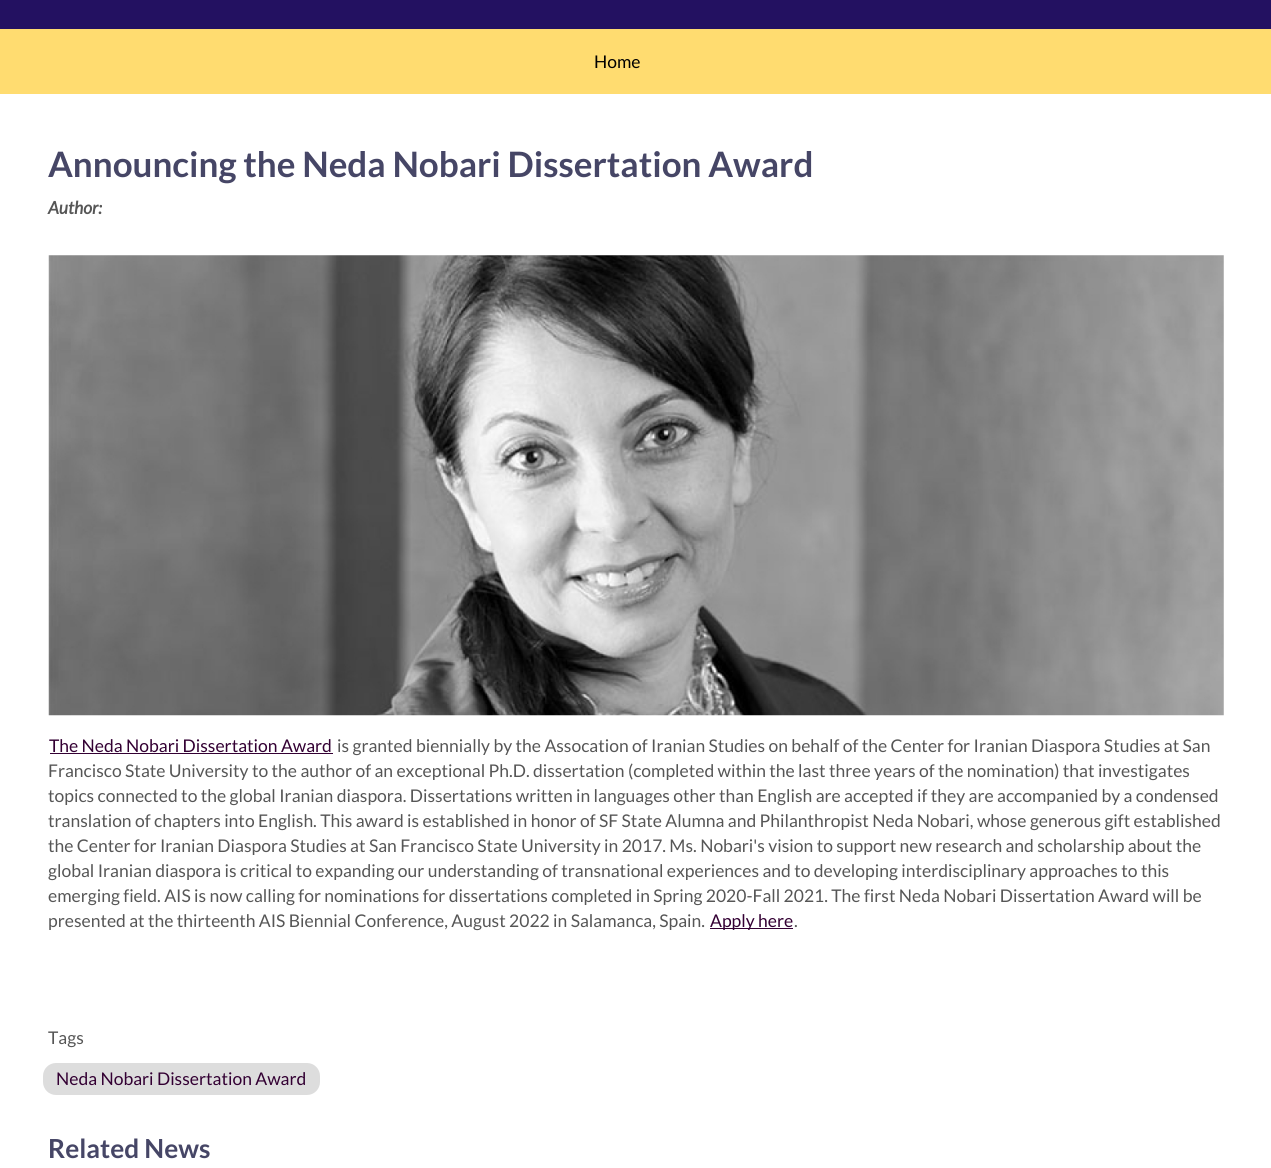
import math
import cairo


def round_path(ctx, x, y, w, h, r):
	ctx.new_sub_path()
	for i, (u, v) in enumerate([(x + w - r, y + h - r), (x + r, y + h - r), (x + r, y + r), (x + w - r, y + r)]):
		ctx.arc(u, v, r, i * math.pi / 2, (i + 1) * math.pi / 2)
	ctx.close_path()

def paste(ctx, path, x, y, w, h):
	ctx.save()
	ctx.set_source_surface(cairo.ImageSurface.create_from_png(path), x, y)
	ctx.rectangle(x, y, w, h)
	ctx.fill()
	ctx.restore()

def draw(ctx):
	ctx.set_source_rgb(1, 1, 1)
	ctx.paint()
	ctx.set_source_rgb(0.137, 0.067, 0.38)
	ctx.rectangle(0, 0, 1271, 29)
	ctx.fill()
	ctx.set_source_rgb(1, 0.863, 0.439)
	ctx.rectangle(0, 29, 1271, 65)
	ctx.fill()
	ctx.select_font_face('Lato')
	ctx.set_font_size(17.5)
	ctx.set_source_rgb(0, 0, 0)
	ctx.move_to(594, 68)
	ctx.show_text('Home')
	ctx.select_font_face('Lato', cairo.FONT_SLANT_NORMAL, cairo.FONT_WEIGHT_BOLD)
	ctx.set_font_size(35)
	ctx.set_source_rgb(0.275, 0.275, 0.4)
	ctx.move_to(48, 177)
	ctx.show_text('Announcing the Neda Nobari Dissertation Award')
	ctx.select_font_face('Lato', cairo.FONT_SLANT_ITALIC, cairo.FONT_WEIGHT_BOLD)
	ctx.set_font_size(17.5)
	ctx.set_source_rgb(0.337, 0.337, 0.337)
	ctx.move_to(48, 214)
	ctx.show_text('Author:')
	paste(ctx, 'media/1.png', 48, 255, 1176, 461)
	ctx.select_font_face('Lato')
	ctx.set_source_rgb(0.2, 0, 0.2)
	ctx.move_to(49, 752)
	ctx.show_text('The Neda Nobari Dissertation Award')
	ctx.rectangle(50, 753, 283, 1)
	ctx.fill()
	ctx.set_source_rgb(0.337, 0.337, 0.337)
	for x, y, s in [
		(337, 752, 'is granted biennially by the Assocation of Iranian Studies on behalf of the Center for Iranian Diaspora Studies at San'),
		(48, 777, 'Francisco State University to the author of an exceptional Ph.D. dissertation (completed within the last three years of the nomination) that investigates'),
		(48, 802, 'topics connected to the global Iranian diaspora. Dissertations written in languages other than English are accepted if they are accompanied by a condensed'),
		(48, 827, 'translation of chapters into English. This award is established in honor of SF State Alumna and Philanthropist Neda Nobari, whose generous gift established'),
		(48, 852, 'the Center for Iranian Diaspora Studies at San Francisco State University in 2017. Ms. Nobari\'s vision to support new research and scholarship about the'),
		(48, 877, 'global Iranian diaspora is critical to expanding our understanding of transnational experiences and to developing interdisciplinary approaches to this'),
		(48, 902, 'emerging field. AIS is now calling for nominations for dissertations completed in Spring 2020-Fall 2021. The first Neda Nobari Dissertation Award will be'),
		(48, 927, 'presented at the thirteenth AIS Biennial Conference, August 2022 in Salamanca, Spain.'),
	]:
		ctx.move_to(x, y)
		ctx.show_text(s)
	ctx.set_source_rgb(0.2, 0, 0.2)
	ctx.rectangle(710, 928, 83, 1)
	ctx.fill()
	ctx.move_to(710, 927)
	ctx.show_text('Apply here')
	ctx.set_source_rgb(0.337, 0.337, 0.337)
	ctx.move_to(794, 927)
	ctx.show_text('.')
	ctx.move_to(48, 1044)
	ctx.show_text('Tags')
	ctx.set_source_rgb(0.867, 0.867, 0.867)
	round_path(ctx, 43, 1063, 277, 32, 13)
	ctx.fill()
	ctx.set_source_rgb(0.2, 0, 0.2)
	ctx.move_to(56, 1085)
	ctx.show_text('Neda Nobari Dissertation Award')
	ctx.select_font_face('Lato', cairo.FONT_SLANT_NORMAL, cairo.FONT_WEIGHT_BOLD)
	ctx.set_font_size(26.25)
	ctx.set_source_rgb(0.275, 0.275, 0.4)
	ctx.move_to(48, 1158)
	ctx.show_text('Related News')


surface = cairo.ImageSurface(cairo.FORMAT_RGB24, 1271, 1168)
ctx = cairo.Context(surface)
options = cairo.FontOptions()
options.set_hint_metrics(cairo.HINT_METRICS_OFF)
options.set_hint_style(cairo.HINT_STYLE_NONE)
ctx.set_font_options(options)
ctx.set_miter_limit(4)
draw(ctx)
surface.write_to_png('image.png')
